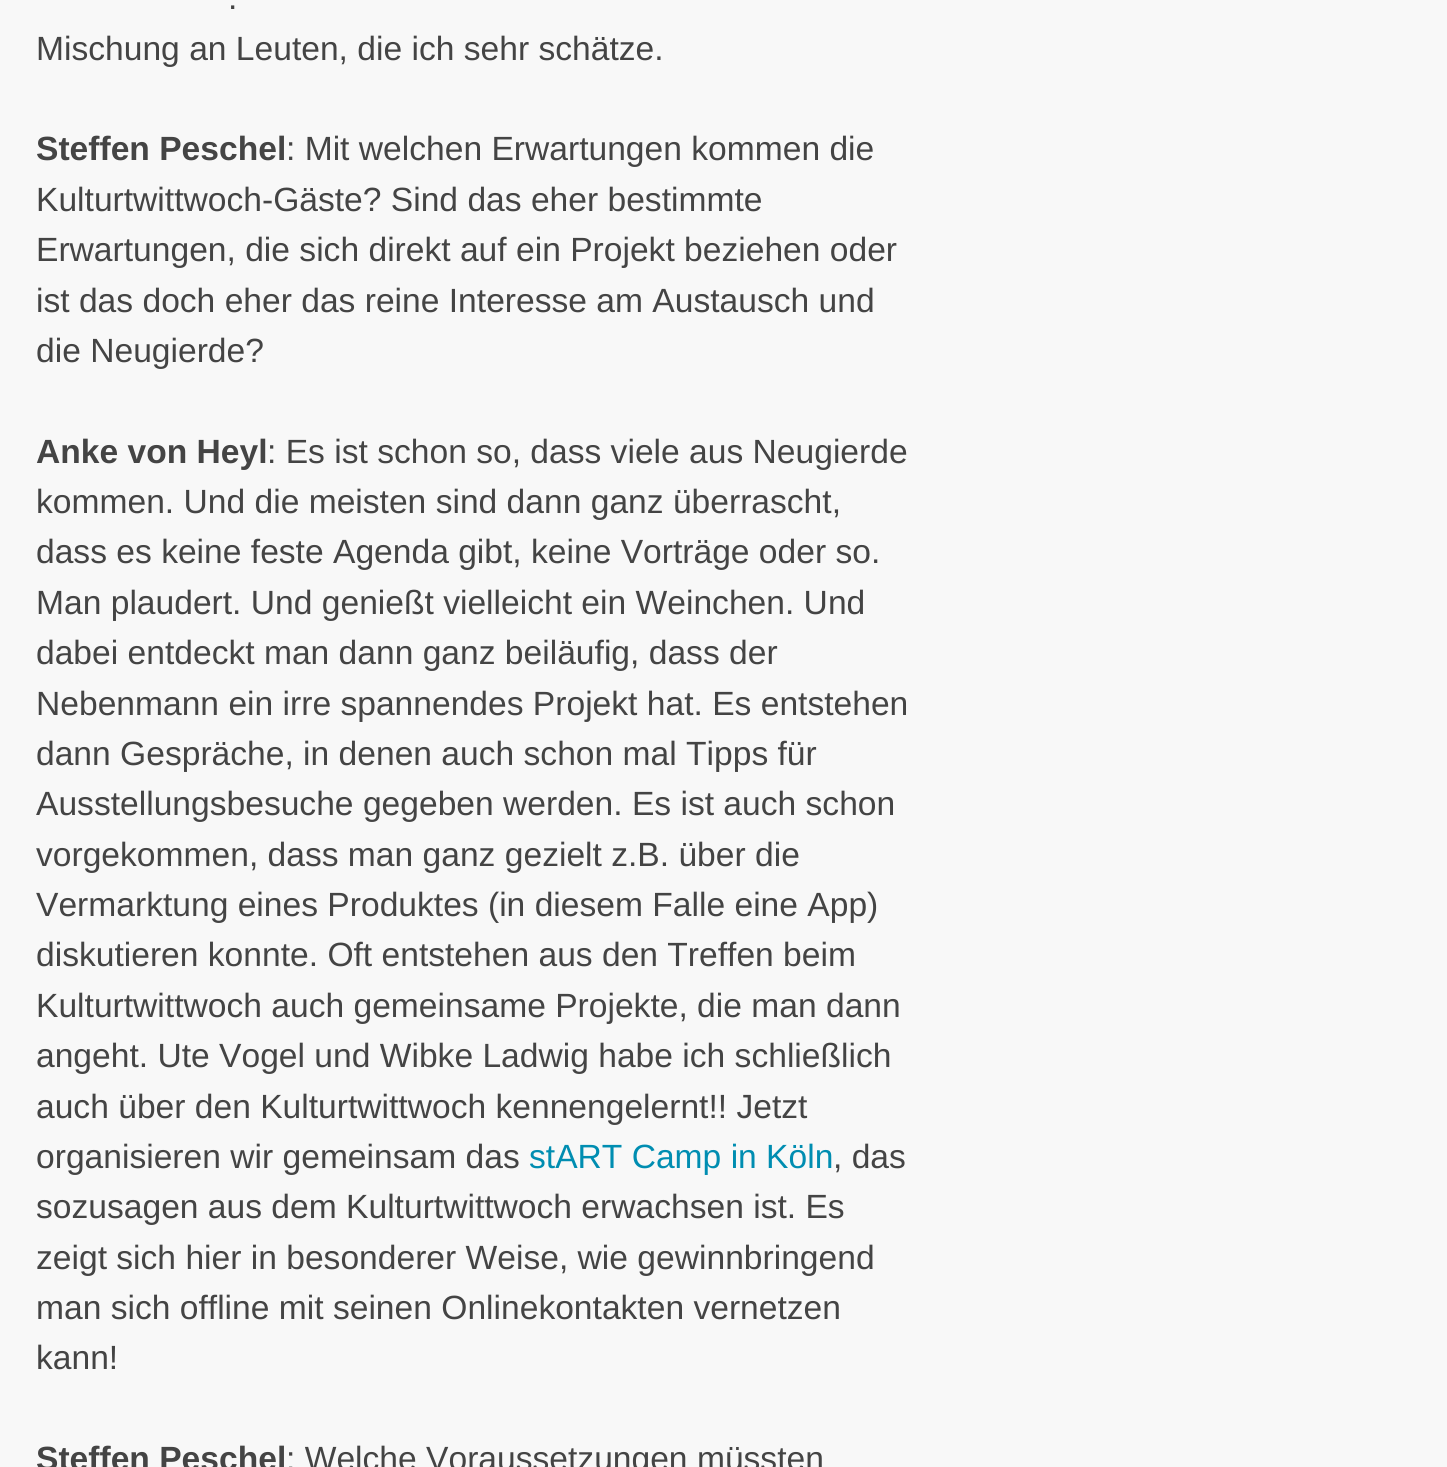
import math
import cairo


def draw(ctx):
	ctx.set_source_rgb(0.969, 0.969, 0.969)
	ctx.paint()
	ctx.select_font_face('Liberation Sans')
	ctx.set_font_size(33.6)
	ctx.set_source_rgb(0.267, 0.267, 0.267)
	ctx.move_to(228, 9)
	ctx.show_text('.')
	ctx.move_to(36, 60)
	ctx.show_text('Mischung an Leuten, die ich sehr schätze.')
	ctx.select_font_face('Liberation Sans', cairo.FONT_SLANT_NORMAL, cairo.FONT_WEIGHT_BOLD)
	ctx.move_to(36, 160)
	ctx.show_text('Steffen Peschel')
	ctx.select_font_face('Liberation Sans')
	for x, y, s in [
		(286, 160, ': Mit welchen Erwartungen kommen die'),
		(36, 211, 'Kulturtwittwoch-Gäste? Sind das eher bestimmte'),
		(36, 261, 'Erwartungen, die sich direkt auf ein Projekt beziehen oder'),
		(36, 312, 'ist das doch eher das reine Interesse am Austausch und'),
		(36, 362, 'die Neugierde?'),
	]:
		ctx.move_to(x, y)
		ctx.show_text(s)
	ctx.select_font_face('Liberation Sans', cairo.FONT_SLANT_NORMAL, cairo.FONT_WEIGHT_BOLD)
	ctx.move_to(36, 463)
	ctx.show_text('Anke von Heyl')
	ctx.select_font_face('Liberation Sans')
	for x, y, s in [
		(267, 463, ': Es ist schon so, dass viele aus Neugierde'),
		(36, 513, 'kommen. Und die meisten sind dann ganz überrascht,'),
		(36, 563, 'dass es keine feste Agenda gibt, keine Vorträge oder so.'),
		(36, 614, 'Man plaudert. Und genießt vielleicht ein Weinchen. Und'),
		(36, 664, 'dabei entdeckt man dann ganz beiläufig, dass der'),
		(36, 715, 'Nebenmann ein irre spannendes Projekt hat. Es entstehen'),
		(36, 765, 'dann Gespräche, in denen auch schon mal Tipps für'),
		(36, 815, 'Ausstellungsbesuche gegeben werden. Es ist auch schon'),
		(36, 866, 'vorgekommen, dass man ganz gezielt z.B. über die'),
		(36, 916, 'Vermarktung eines Produktes (in diesem Falle eine App)'),
		(36, 966, 'diskutieren konnte. Oft entstehen aus den Treffen beim'),
		(36, 1017, 'Kulturtwittwoch auch gemeinsame Projekte, die man dann'),
		(36, 1067, 'angeht. Ute Vogel und Wibke Ladwig habe ich schließlich'),
		(36, 1118, 'auch über den Kulturtwittwoch kennengelernt!! Jetzt'),
		(36, 1168, 'organisieren wir gemeinsam das'),
	]:
		ctx.move_to(x, y)
		ctx.show_text(s)
	ctx.set_source_rgb(0, 0.553, 0.694)
	ctx.move_to(529, 1168)
	ctx.show_text('stART Camp in Köln')
	ctx.set_source_rgb(0.267, 0.267, 0.267)
	for x, y, s in [
		(833, 1168, ', das'),
		(36, 1218, 'sozusagen aus dem Kulturtwittwoch erwachsen ist. Es'),
		(36, 1269, 'zeigt sich hier in besonderer Weise, wie gewinnbringend'),
		(36, 1319, 'man sich offline mit seinen Onlinekontakten vernetzen'),
		(36, 1369, 'kann!'),
	]:
		ctx.move_to(x, y)
		ctx.show_text(s)
	ctx.select_font_face('Liberation Sans', cairo.FONT_SLANT_NORMAL, cairo.FONT_WEIGHT_BOLD)
	ctx.move_to(36, 1470)
	ctx.show_text('Steffen Peschel')
	ctx.select_font_face('Liberation Sans')
	ctx.move_to(286, 1470)
	ctx.show_text(': Welche Voraussetzungen müssten')


surface = cairo.ImageSurface(cairo.FORMAT_RGB24, 1447, 1467)
ctx = cairo.Context(surface)
options = cairo.FontOptions()
options.set_hint_metrics(cairo.HINT_METRICS_OFF)
options.set_hint_style(cairo.HINT_STYLE_NONE)
ctx.set_font_options(options)
ctx.set_miter_limit(4)
draw(ctx)
surface.write_to_png('image.png')
